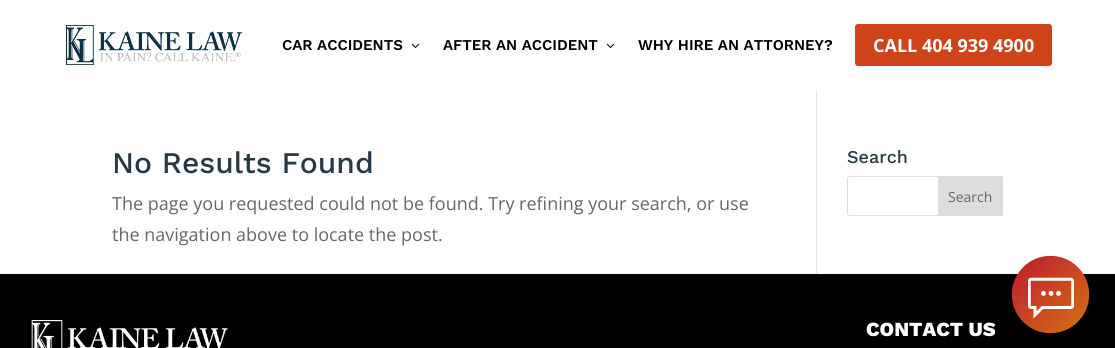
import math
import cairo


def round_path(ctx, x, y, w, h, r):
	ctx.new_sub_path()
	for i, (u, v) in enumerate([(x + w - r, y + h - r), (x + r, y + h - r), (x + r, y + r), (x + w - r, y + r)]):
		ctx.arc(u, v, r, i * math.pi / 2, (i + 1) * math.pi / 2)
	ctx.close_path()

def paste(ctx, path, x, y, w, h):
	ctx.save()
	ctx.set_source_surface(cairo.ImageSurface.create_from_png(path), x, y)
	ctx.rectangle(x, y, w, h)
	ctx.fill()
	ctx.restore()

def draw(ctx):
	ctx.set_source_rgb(1, 1, 1)
	ctx.paint()
	paste(ctx, 'media/1.png', 66, 25, 176, 40)
	ctx.select_font_face('Work Sans SemiBold')
	ctx.set_font_size(15)
	ctx.set_source_rgb(0, 0, 0)
	ctx.move_to(282, 50)
	ctx.show_text('CAR ACCIDENTS')
	paste(ctx, 'media/2.png', 411, 43, 9, 5)
	ctx.move_to(443, 50)
	ctx.show_text('AFTER AN ACCIDENT')
	paste(ctx, 'media/2.png', 606, 43, 9, 5)
	ctx.move_to(638, 50)
	ctx.show_text('WHY HIRE AN ATTORNEY?')
	ctx.set_source_rgb(0.808, 0.263, 0.094)
	round_path(ctx, 855, 24, 197, 42, 3)
	ctx.fill()
	ctx.select_font_face('Open Sans', cairo.FONT_SLANT_NORMAL, cairo.FONT_WEIGHT_BOLD)
	ctx.set_font_size(18)
	ctx.set_source_rgb(1, 1, 1)
	ctx.move_to(873, 52)
	ctx.show_text('CALL 404 939 4900')
	ctx.set_source_rgb(0.886, 0.886, 0.886)
	ctx.rectangle(816, 90, 1, 184)
	ctx.fill()
	ctx.select_font_face('Work Sans Medium')
	ctx.set_font_size(30)
	ctx.set_source_rgb(0.145, 0.22, 0.271)
	ctx.move_to(112, 173)
	ctx.show_text('No Results Found')
	ctx.select_font_face('Open Sans')
	ctx.set_font_size(18)
	ctx.set_source_rgb(0.4, 0.4, 0.4)
	ctx.move_to(112, 210)
	ctx.show_text('The page you requested could not be found. Try refining your search, or use')
	ctx.move_to(112, 241)
	ctx.show_text('the navigation above to locate the post.')
	ctx.select_font_face('Work Sans Medium')
	ctx.set_source_rgb(0.145, 0.22, 0.271)
	ctx.move_to(847, 163)
	ctx.show_text('Search')
	round_path(ctx, 847.5, 176.5, 155, 39, 2.5)
	ctx.set_source_rgb(0.867, 0.867, 0.867)
	ctx.set_line_width(1)
	ctx.stroke()
	ctx.new_path()
	ctx.move_to(938.5, 176.5)
	ctx.line_to(1000, 176.5)
	ctx.curve_to(1001.5, 176.5, 1002.5, 177.5, 1002.5, 179)
	ctx.line_to(1002.5, 213)
	ctx.curve_to(1002.5, 214.5, 1001.5, 215.5, 1000, 215.5)
	ctx.line_to(938.5, 215.5)
	ctx.close_path()
	ctx.fill_preserve()
	ctx.stroke()
	ctx.select_font_face('Open Sans')
	ctx.set_font_size(14)
	ctx.set_source_rgb(0.4, 0.4, 0.4)
	ctx.move_to(948, 202)
	ctx.show_text('Search')
	ctx.set_source_rgb(0, 0, 0)
	ctx.rectangle(0, 274, 1115, 74)
	ctx.fill()
	paste(ctx, 'media/3.png', 31, 320, 197, 28)
	ctx.select_font_face('Work Sans ExtraBold')
	ctx.set_font_size(20)
	ctx.set_source_rgb(1, 1, 1)
	ctx.move_to(866, 336)
	ctx.show_text('CONTACT US')
	paste(ctx, 'media/4.png', 1012, 256, 77, 77)


surface = cairo.ImageSurface(cairo.FORMAT_RGB24, 1115, 348)
ctx = cairo.Context(surface)
options = cairo.FontOptions()
options.set_hint_metrics(cairo.HINT_METRICS_OFF)
options.set_hint_style(cairo.HINT_STYLE_NONE)
ctx.set_font_options(options)
ctx.set_miter_limit(4)
draw(ctx)
surface.write_to_png('image.png')
